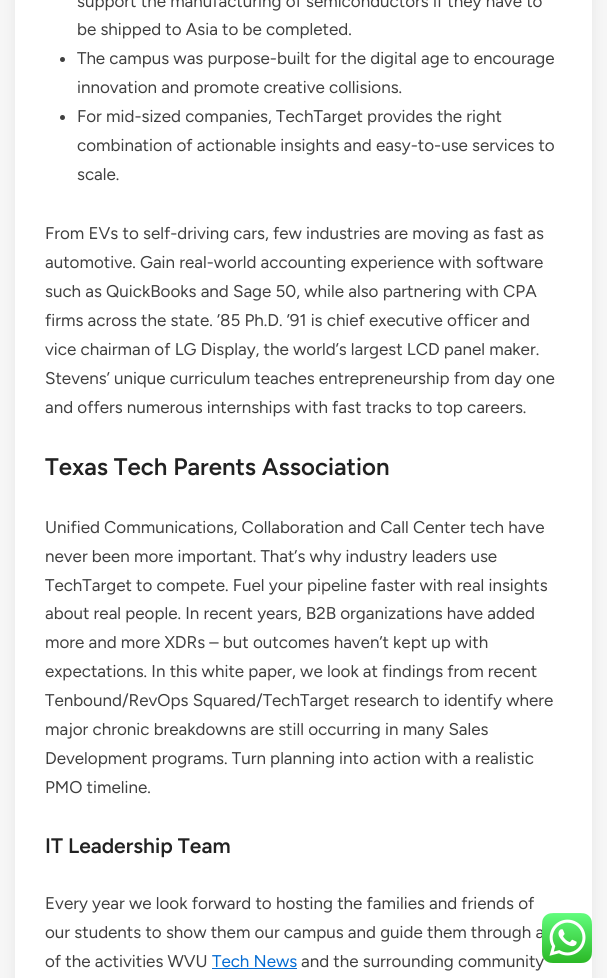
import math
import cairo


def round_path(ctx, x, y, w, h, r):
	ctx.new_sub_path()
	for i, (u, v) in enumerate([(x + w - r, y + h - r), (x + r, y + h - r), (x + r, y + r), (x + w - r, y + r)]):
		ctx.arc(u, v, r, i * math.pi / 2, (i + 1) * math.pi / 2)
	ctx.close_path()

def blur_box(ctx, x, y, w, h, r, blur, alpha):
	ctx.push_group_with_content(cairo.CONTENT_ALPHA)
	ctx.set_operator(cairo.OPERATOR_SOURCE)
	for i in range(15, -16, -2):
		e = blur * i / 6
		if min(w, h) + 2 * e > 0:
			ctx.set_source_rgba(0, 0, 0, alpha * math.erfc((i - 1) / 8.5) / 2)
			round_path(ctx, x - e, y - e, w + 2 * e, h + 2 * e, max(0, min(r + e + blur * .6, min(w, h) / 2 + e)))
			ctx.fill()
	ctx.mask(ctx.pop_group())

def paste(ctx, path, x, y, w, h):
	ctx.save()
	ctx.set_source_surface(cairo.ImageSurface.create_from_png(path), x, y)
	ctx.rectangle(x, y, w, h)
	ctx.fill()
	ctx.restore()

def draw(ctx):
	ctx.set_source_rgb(0.961, 0.961, 0.961)
	ctx.paint()
	ctx.set_source_rgb(0, 0, 0)
	blur_box(ctx, 15, -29, 577, 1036, 6, 7.5, 0.06)
	ctx.set_source_rgb(1, 1, 1)
	ctx.rectangle(15, 0, 577, 978)
	ctx.fill()
	ctx.select_font_face('Figtree')
	ctx.set_font_size(17)
	ctx.set_source_rgb(0.251, 0.251, 0.251)
	ctx.move_to(77, 7)
	ctx.show_text('support the manufacturing of semiconductors if they have to')
	ctx.move_to(77, 35)
	ctx.show_text('be shipped to Asia to be completed.')
	ctx.new_path()
	ctx.arc(62.5, 59.5, 2.5, 0, 2 * math.pi)
	ctx.fill()
	ctx.move_to(77, 64)
	ctx.show_text('The campus was purpose-built for the digital age to encourage')
	ctx.move_to(77, 93)
	ctx.show_text('innovation and promote creative collisions.')
	ctx.new_path()
	ctx.arc(62.5, 117.5, 2.5, 0, 2 * math.pi)
	ctx.fill()
	for x, y, s in [
		(77, 122, 'For mid-sized companies, TechTarget provides the right'),
		(77, 151, 'combination of actionable insights and easy-to-use services to'),
		(77, 180, 'scale.'),
		(45, 239, 'From EVs to self-driving cars, few industries are moving as fast as'),
		(45, 268, 'automotive. Gain real-world accounting experience with software'),
		(45, 297, 'such as QuickBooks and Sage 50, while also partnering with CPA'),
		(45, 326, 'firms across the state. ’85 Ph.D. ’91 is chief executive officer and'),
		(45, 355, 'vice chairman of LG Display, the world’s largest LCD panel maker.'),
		(45, 384, 'Stevens’ unique curriculum teaches entrepreneurship from day one'),
		(45, 413, 'and offers numerous internships with fast tracks to top careers.'),
	]:
		ctx.move_to(x, y)
		ctx.show_text(s)
	ctx.select_font_face('Figtree SemiBold')
	ctx.set_font_size(24)
	ctx.set_source_rgb(0.133, 0.133, 0.133)
	ctx.move_to(45, 475)
	ctx.show_text('Texas Tech Parents Association')
	ctx.select_font_face('Figtree')
	ctx.set_font_size(17)
	ctx.set_source_rgb(0.251, 0.251, 0.251)
	for x, y, s in [
		(45, 533, 'Unified Communications, Collaboration and Call Center tech have'),
		(45, 562, 'never been more important. That’s why industry leaders use'),
		(45, 591, 'TechTarget to compete. Fuel your pipeline faster with real insights'),
		(45, 619, 'about real people. In recent years, B2B organizations have added'),
		(45, 648, 'more and more XDRs – but outcomes haven’t kept up with'),
		(45, 677, 'expectations. In this white paper, we look at findings from recent'),
		(45, 706, 'Tenbound/RevOps Squared/TechTarget research to identify where'),
		(45, 735, 'major chronic breakdowns are still occurring in many Sales'),
		(45, 764, 'Development programs. Turn planning into action with a realistic'),
		(45, 793, 'PMO timeline.'),
	]:
		ctx.move_to(x, y)
		ctx.show_text(s)
	ctx.select_font_face('Figtree SemiBold')
	ctx.set_font_size(21)
	ctx.set_source_rgb(0.133, 0.133, 0.133)
	ctx.move_to(45, 853)
	ctx.show_text('IT Leadership Team')
	ctx.select_font_face('Figtree')
	ctx.set_font_size(17)
	ctx.set_source_rgb(0.251, 0.251, 0.251)
	for x, y, s in [
		(45, 909, 'Every year we look forward to hosting the families and friends of'),
		(45, 938, 'our students to show them our campus and guide them through a'),
		(45, 967, 'of the activities WVU'),
	]:
		ctx.move_to(x, y)
		ctx.show_text(s)
	ctx.set_source_rgb(0.016, 0.42, 0.824)
	ctx.move_to(212, 967)
	ctx.show_text('Tech News')
	ctx.rectangle(212, 968, 85, 1)
	ctx.fill()
	ctx.set_source_rgb(0.251, 0.251, 0.251)
	ctx.move_to(301, 967)
	ctx.show_text('and the surrounding community')
	paste(ctx, 'media/1.png', 542, 913, 50, 50)


surface = cairo.ImageSurface(cairo.FORMAT_RGB24, 607, 978)
ctx = cairo.Context(surface)
options = cairo.FontOptions()
options.set_hint_metrics(cairo.HINT_METRICS_OFF)
options.set_hint_style(cairo.HINT_STYLE_NONE)
ctx.set_font_options(options)
ctx.set_miter_limit(4)
draw(ctx)
surface.write_to_png('image.png')
